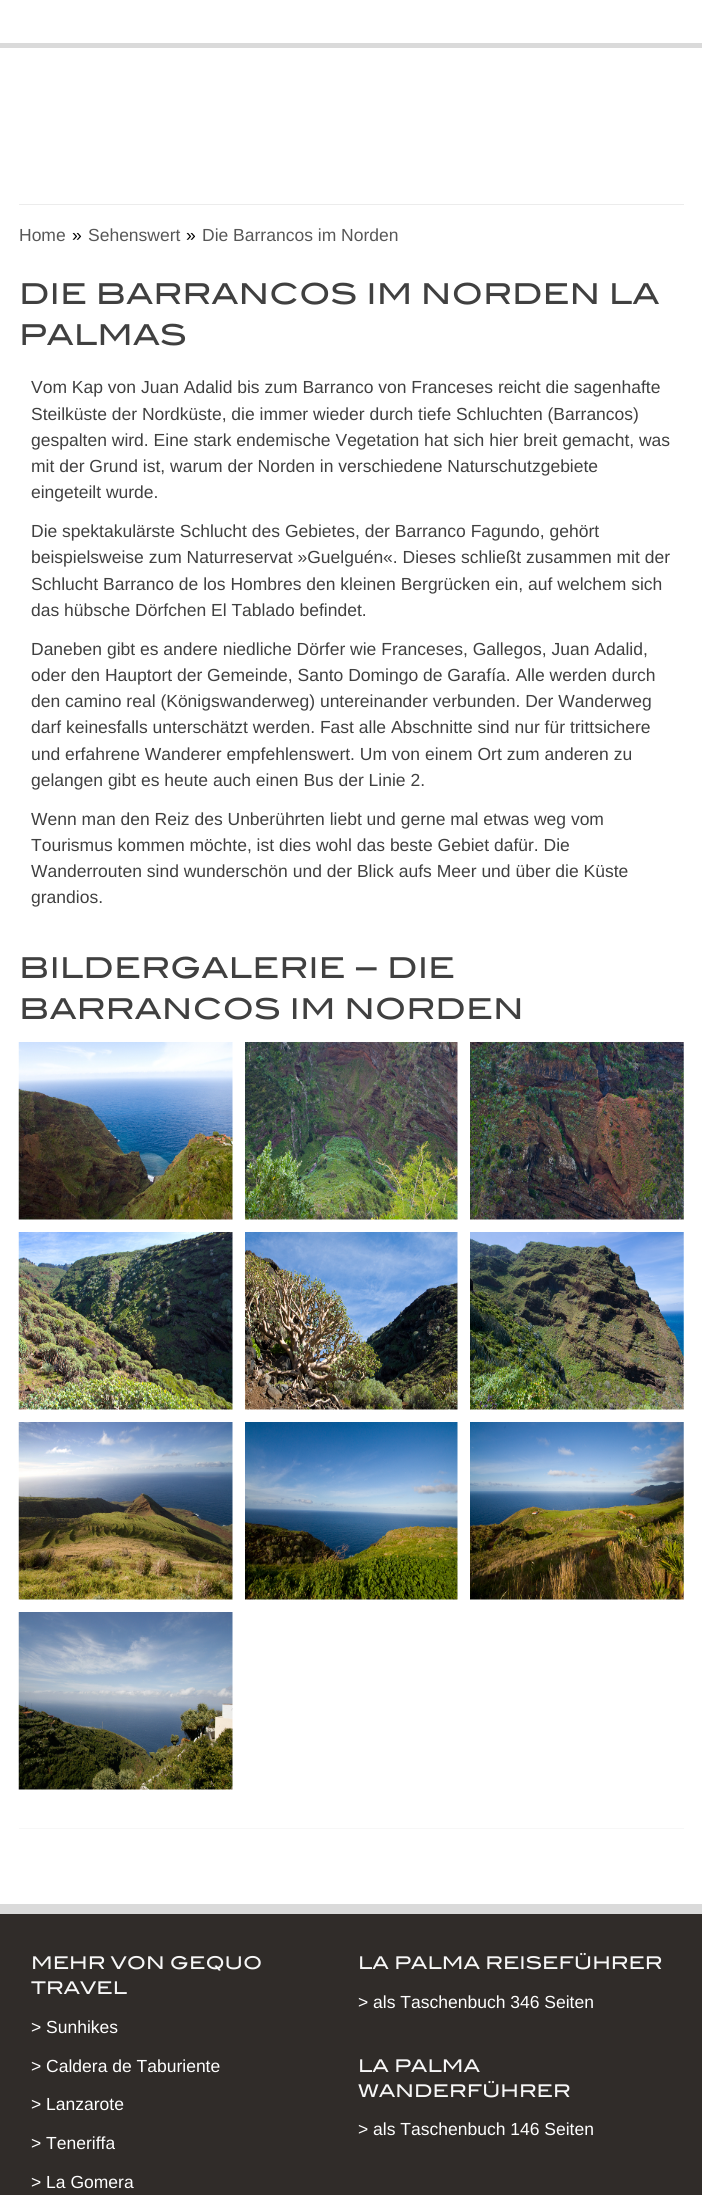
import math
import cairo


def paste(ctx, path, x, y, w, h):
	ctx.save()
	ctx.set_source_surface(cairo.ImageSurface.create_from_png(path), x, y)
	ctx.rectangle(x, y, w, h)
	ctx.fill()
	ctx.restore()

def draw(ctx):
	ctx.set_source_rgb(1, 1, 1)
	ctx.paint()
	ctx.set_source_rgb(0.855, 0.855, 0.855)
	ctx.rectangle(0, 43, 702, 5)
	ctx.fill()
	ctx.set_source_rgb(0.925, 0.925, 0.925)
	ctx.rectangle(19, 204, 665, 1)
	ctx.fill()
	ctx.select_font_face('Liberation Sans')
	ctx.set_font_size(17.5)
	ctx.set_source_rgb(0.341, 0.341, 0.341)
	ctx.move_to(19, 241)
	ctx.show_text('Home')
	ctx.set_source_rgb(0, 0, 0)
	ctx.move_to(72, 241)
	ctx.show_text('»')
	ctx.set_source_rgb(0.341, 0.341, 0.341)
	ctx.move_to(88, 241)
	ctx.show_text('Sehenswert')
	ctx.set_source_rgb(0, 0, 0)
	ctx.move_to(186, 241)
	ctx.show_text('»')
	ctx.set_source_rgb(0.341, 0.341, 0.341)
	ctx.move_to(202, 241)
	ctx.show_text('Die Barrancos im Norden')
	ctx.select_font_face('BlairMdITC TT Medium')
	ctx.set_font_size(28.75)
	ctx.set_source_rgb(0.251, 0.251, 0.251)
	ctx.move_to(19, 304)
	ctx.show_text('DIE BARRANCOS IM NORDEN LA')
	ctx.move_to(19, 345)
	ctx.show_text('PALMAS')
	ctx.select_font_face('Liberation Sans')
	ctx.set_font_size(17.5)
	for x, y, s in [
		(31, 393, 'Vom Kap von Juan Adalid bis zum Barranco von Franceses reicht die sagenhafte'),
		(31, 420, 'Steilküste der Nordküste, die immer wieder durch tiefe Schluchten (Barrancos)'),
		(31, 446, 'gespalten wird. Eine stark endemische Vegetation hat sich hier breit gemacht, was'),
		(31, 472, 'mit der Grund ist, warum der Norden in verschiedene Naturschutzgebiete'),
		(31, 498, 'eingeteilt wurde.'),
		(31, 537, 'Die spektakulärste Schlucht des Gebietes, der Barranco Fagundo, gehört'),
		(31, 563, 'beispielsweise zum Naturreservat »Guelguén«. Dieses schließt zusammen mit der'),
		(31, 590, 'Schlucht Barranco de los Hombres den kleinen Bergrücken ein, auf welchem sich'),
		(31, 616, 'das hübsche Dörfchen El Tablado befindet.'),
		(31, 655, 'Daneben gibt es andere niedliche Dörfer wie Franceses, Gallegos, Juan Adalid,'),
		(31, 681, 'oder den Hauptort der Gemeinde, Santo Domingo de Garafía. Alle werden durch'),
		(31, 707, 'den camino real (Königswanderweg) untereinander verbunden. Der Wanderweg'),
		(31, 733, 'darf keinesfalls unterschätzt werden. Fast alle Abschnitte sind nur für trittsichere'),
		(31, 760, 'und erfahrene Wanderer empfehlenswert. Um von einem Ort zum anderen zu'),
		(31, 786, 'gelangen gibt es heute auch einen Bus der Linie 2.'),
		(31, 825, 'Wenn man den Reiz des Unberührten liebt und gerne mal etwas weg vom'),
		(31, 851, 'Tourismus kommen möchte, ist dies wohl das beste Gebiet dafür. Die'),
		(31, 877, 'Wanderrouten sind wunderschön und der Blick aufs Meer und über die Küste'),
		(31, 903, 'grandios.'),
	]:
		ctx.move_to(x, y)
		ctx.show_text(s)
	ctx.select_font_face('BlairMdITC TT Medium')
	ctx.set_font_size(28.75)
	ctx.move_to(19, 978)
	ctx.show_text('BILDERGALERIE – DIE')
	ctx.move_to(19, 1019)
	ctx.show_text('BARRANCOS IM NORDEN')
	paste(ctx, 'media/1.png', 18, 1042, 215, 178)
	paste(ctx, 'media/2.png', 245, 1042, 213, 178)
	paste(ctx, 'media/3.png', 470, 1042, 214, 178)
	paste(ctx, 'media/4.png', 18, 1232, 215, 178)
	paste(ctx, 'media/5.png', 245, 1232, 213, 178)
	paste(ctx, 'media/6.png', 470, 1232, 214, 178)
	paste(ctx, 'media/7.png', 18, 1422, 215, 178)
	paste(ctx, 'media/8.png', 245, 1422, 213, 178)
	paste(ctx, 'media/9.png', 470, 1422, 214, 178)
	paste(ctx, 'media/10.png', 18, 1612, 215, 178)
	ctx.set_source_rgb(0.965, 0.965, 0.965)
	ctx.rectangle(19, 1828, 665, 1)
	ctx.fill()
	ctx.set_source_rgb(0.855, 0.855, 0.855)
	ctx.rectangle(0, 1904, 702, 10)
	ctx.fill()
	ctx.set_source_rgb(0.188, 0.173, 0.161)
	ctx.rectangle(0, 1914, 702, 281)
	ctx.fill()
	ctx.set_font_size(17.5)
	ctx.set_source_rgb(0.965, 0.965, 0.965)
	ctx.move_to(31, 1969)
	ctx.show_text('MEHR VON GEQUO')
	ctx.move_to(31, 1994)
	ctx.show_text('TRAVEL')
	ctx.select_font_face('Liberation Sans')
	ctx.set_source_rgb(1, 1, 1)
	for x, y, s in [
		(31, 2033, '> Sunhikes'),
		(31, 2072, '> Caldera de Taburiente'),
		(31, 2110, '> Lanzarote'),
		(31, 2149, '> Teneriffa'),
		(31, 2188, '> La Gomera'),
	]:
		ctx.move_to(x, y)
		ctx.show_text(s)
	ctx.select_font_face('BlairMdITC TT Medium')
	ctx.set_source_rgb(0.965, 0.965, 0.965)
	ctx.move_to(358, 1969)
	ctx.show_text('LA PALMA REISEFÜHRER')
	ctx.select_font_face('Liberation Sans')
	ctx.set_source_rgb(1, 1, 1)
	ctx.move_to(358, 2008)
	ctx.show_text('> als Taschenbuch 346 Seiten')
	ctx.select_font_face('BlairMdITC TT Medium')
	ctx.set_source_rgb(0.965, 0.965, 0.965)
	ctx.move_to(358, 2072)
	ctx.show_text('LA PALMA')
	ctx.move_to(358, 2097)
	ctx.show_text('WANDERFÜHRER')
	ctx.select_font_face('Liberation Sans')
	ctx.set_source_rgb(1, 1, 1)
	ctx.move_to(358, 2135)
	ctx.show_text('> als Taschenbuch 146 Seiten')


surface = cairo.ImageSurface(cairo.FORMAT_RGB24, 702, 2195)
ctx = cairo.Context(surface)
options = cairo.FontOptions()
options.set_hint_metrics(cairo.HINT_METRICS_OFF)
options.set_hint_style(cairo.HINT_STYLE_NONE)
ctx.set_font_options(options)
ctx.set_miter_limit(4)
draw(ctx)
surface.write_to_png('image.png')
